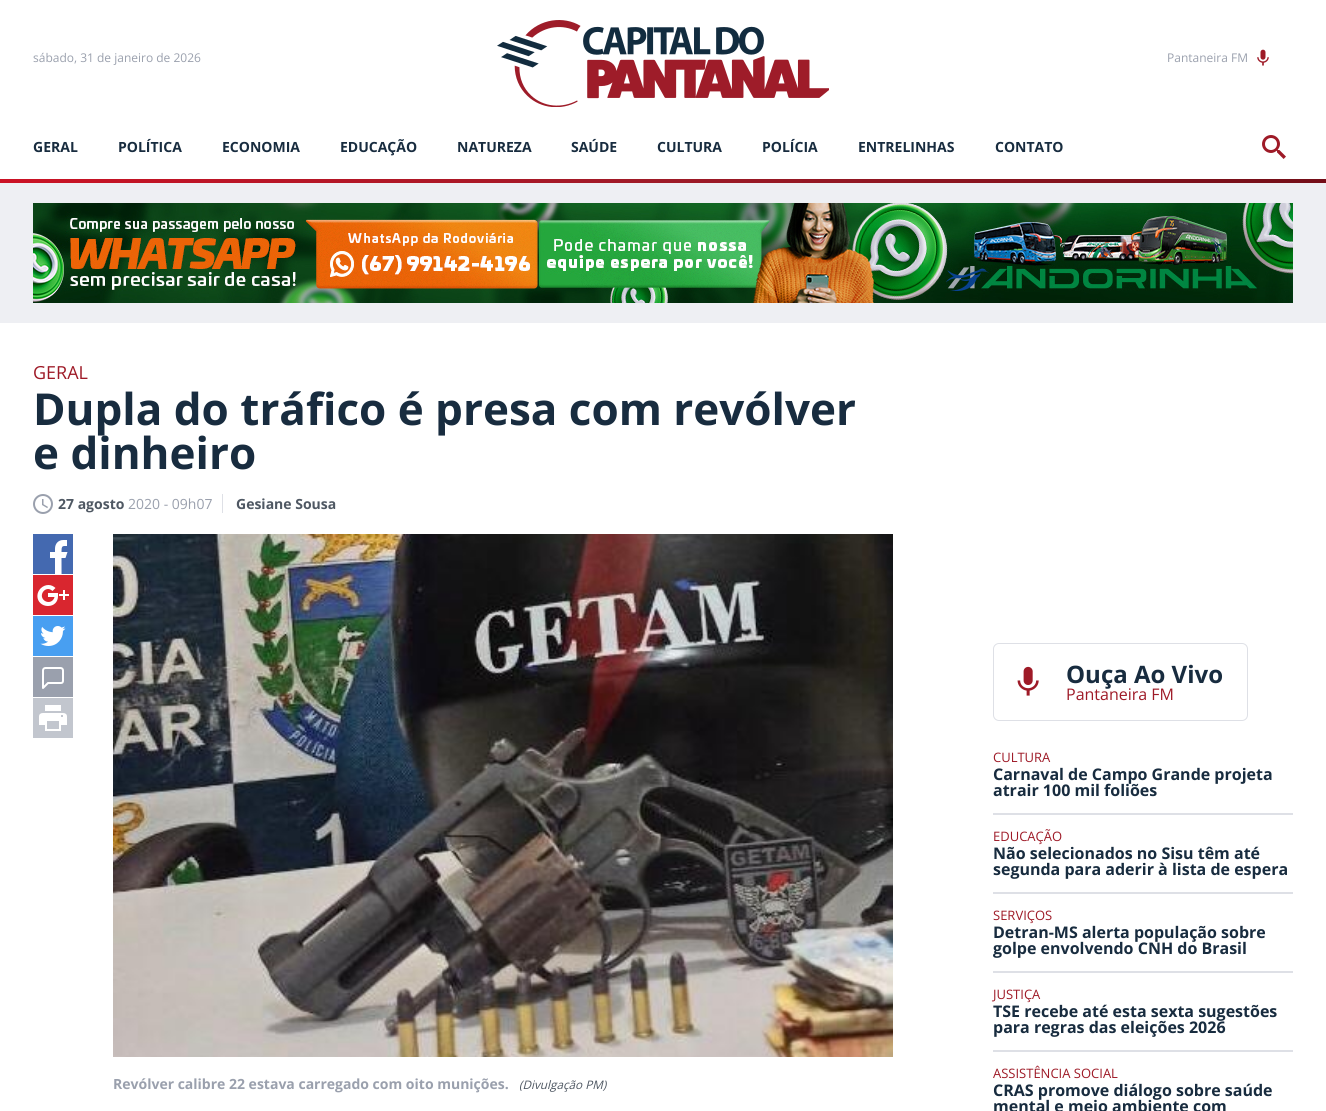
import math
import cairo


def round_path(ctx, x, y, w, h, r):
	ctx.new_sub_path()
	for i, (u, v) in enumerate([(x + w - r, y + h - r), (x + r, y + h - r), (x + r, y + r), (x + w - r, y + r)]):
		ctx.arc(u, v, r, i * math.pi / 2, (i + 1) * math.pi / 2)
	ctx.close_path()

def paste(ctx, path, x, y, w, h):
	ctx.save()
	ctx.set_source_surface(cairo.ImageSurface.create_from_png(path), x, y)
	ctx.rectangle(x, y, w, h)
	ctx.fill()
	ctx.restore()

def draw(ctx):
	ctx.set_source_rgb(1, 1, 1)
	ctx.paint()
	ctx.select_font_face('Open Sans')
	ctx.set_font_size(12)
	ctx.set_source_rgb(0.604, 0.627, 0.678)
	ctx.move_to(33, 62)
	ctx.show_text('sábado, 31 de janeiro de 2026')
	paste(ctx, 'media/1.png', 497, 20, 332, 87)
	ctx.move_to(1167, 62)
	ctx.show_text('Pantaneira FM')
	paste(ctx, 'media/2.png', 1257, 49, 12, 17)
	ctx.select_font_face('Open Sans', cairo.FONT_SLANT_NORMAL, cairo.FONT_WEIGHT_BOLD)
	ctx.set_font_size(14)
	ctx.set_source_rgb(0.094, 0.173, 0.247)
	for x, y, s in [
		(33, 152, 'GERAL'),
		(118, 152, 'POLÍTICA'),
		(222, 152, 'ECONOMIA'),
		(340, 152, 'EDUCAÇÃO'),
		(457, 152, 'NATUREZA'),
		(571, 152, 'SAÚDE'),
		(657, 152, 'CULTURA'),
		(762, 152, 'POLÍCIA'),
		(858, 152, 'ENTRELINHAS'),
		(995, 152, 'CONTATO'),
	]:
		ctx.move_to(x, y)
		ctx.show_text(s)
	paste(ctx, 'media/3.png', 1262, 135, 24, 24)
	gradient = cairo.LinearGradient(0, 181, 1326, 181)
	gradient.add_color_stop_rgba(0, 0.796, 0.071, 0.145, 1)
	gradient.add_color_stop_rgba(0.5, 0.62, 0.102, 0.153, 1)
	gradient.add_color_stop_rgba(1, 0.455, 0.055, 0.094, 1)
	ctx.set_source(gradient)
	ctx.rectangle(0, 179, 1326, 4)
	ctx.fill()
	ctx.set_source_rgb(0.933, 0.937, 0.953)
	ctx.rectangle(0, 183, 1326, 140)
	ctx.fill()
	paste(ctx, 'media/4.png', 33, 203, 1260, 100)
	ctx.select_font_face('Open Sans')
	ctx.set_font_size(18)
	ctx.set_source_rgb(0.62, 0.102, 0.153)
	ctx.move_to(33, 379)
	ctx.show_text('GERAL')
	ctx.select_font_face('Open Sans', cairo.FONT_SLANT_NORMAL, cairo.FONT_WEIGHT_BOLD)
	ctx.set_font_size(44)
	ctx.set_source_rgb(0.094, 0.173, 0.247)
	ctx.move_to(33, 425)
	ctx.show_text('Dupla do tráfico é presa com revólver')
	ctx.move_to(33, 469)
	ctx.show_text('e dinheiro')
	paste(ctx, 'media/5.png', 33, 494, 20, 20)
	ctx.set_font_size(14)
	ctx.set_source_rgb(0.31, 0.345, 0.388)
	ctx.move_to(58, 509)
	ctx.show_text('27 agosto')
	ctx.select_font_face('Open Sans')
	ctx.set_source_rgb(0.604, 0.627, 0.678)
	ctx.move_to(128, 509)
	ctx.show_text('2020 - 09h07')
	ctx.set_source_rgb(0.871, 0.878, 0.902)
	ctx.rectangle(222, 494, 1, 19)
	ctx.fill()
	ctx.select_font_face('Open Sans', cairo.FONT_SLANT_NORMAL, cairo.FONT_WEIGHT_BOLD)
	ctx.set_source_rgb(0.31, 0.345, 0.388)
	ctx.move_to(236, 509)
	ctx.show_text('Gesiane Sousa')
	paste(ctx, 'media/6.png', 33, 534, 40, 40)
	paste(ctx, 'media/7.png', 33, 575, 40, 40)
	paste(ctx, 'media/8.png', 33, 616, 40, 40)
	paste(ctx, 'media/9.png', 33, 657, 40, 40)
	paste(ctx, 'media/10.png', 33, 698, 40, 40)
	paste(ctx, 'media/11.png', 113, 534, 780, 523)
	ctx.set_source_rgb(0.604, 0.627, 0.678)
	ctx.move_to(113, 1089)
	ctx.show_text('Revólver calibre 22 estava carregado com oito munições.')
	ctx.select_font_face('Open Sans', cairo.FONT_SLANT_ITALIC)
	ctx.set_font_size(11.75)
	ctx.set_source_rgb(0.31, 0.345, 0.388)
	ctx.move_to(519, 1089)
	ctx.show_text('(Divulgação PM)')
	round_path(ctx, 993.5, 643.5, 254, 77, 5.5)
	ctx.set_source_rgb(0.871, 0.878, 0.902)
	ctx.set_line_width(1)
	ctx.stroke()
	paste(ctx, 'media/12.png', 1017, 666, 22, 30)
	ctx.select_font_face('Open Sans', cairo.FONT_SLANT_NORMAL, cairo.FONT_WEIGHT_BOLD)
	ctx.set_font_size(24)
	ctx.set_source_rgb(0.094, 0.173, 0.247)
	ctx.move_to(1066, 683)
	ctx.show_text('Ouça Ao Vivo')
	ctx.select_font_face('Open Sans')
	ctx.set_font_size(16)
	ctx.set_source_rgb(0.62, 0.102, 0.153)
	ctx.move_to(1066, 700)
	ctx.show_text('Pantaneira FM')
	ctx.set_source_rgb(0.871, 0.878, 0.902)
	ctx.rectangle(993, 813, 300, 2)
	ctx.fill()
	ctx.set_font_size(13)
	ctx.set_source_rgb(0.62, 0.102, 0.153)
	ctx.move_to(993, 762)
	ctx.show_text('CULTURA')
	ctx.select_font_face('Open Sans', cairo.FONT_SLANT_NORMAL, cairo.FONT_WEIGHT_BOLD)
	ctx.set_font_size(16)
	ctx.set_source_rgb(0.094, 0.173, 0.247)
	ctx.move_to(993, 780)
	ctx.show_text('Carnaval de Campo Grande projeta')
	ctx.move_to(993, 796)
	ctx.show_text('atrair 100 mil foliões')
	ctx.set_source_rgb(0.871, 0.878, 0.902)
	ctx.rectangle(993, 892, 300, 2)
	ctx.fill()
	ctx.select_font_face('Open Sans')
	ctx.set_font_size(13)
	ctx.set_source_rgb(0.62, 0.102, 0.153)
	ctx.move_to(993, 841)
	ctx.show_text('EDUCAÇÃO')
	ctx.select_font_face('Open Sans', cairo.FONT_SLANT_NORMAL, cairo.FONT_WEIGHT_BOLD)
	ctx.set_font_size(16)
	ctx.set_source_rgb(0.094, 0.173, 0.247)
	ctx.move_to(993, 859)
	ctx.show_text('Não selecionados no Sisu têm até')
	ctx.move_to(993, 875)
	ctx.show_text('segunda para aderir à lista de espera')
	ctx.set_source_rgb(0.871, 0.878, 0.902)
	ctx.rectangle(993, 971, 300, 2)
	ctx.fill()
	ctx.select_font_face('Open Sans')
	ctx.set_font_size(13)
	ctx.set_source_rgb(0.62, 0.102, 0.153)
	ctx.move_to(993, 920)
	ctx.show_text('SERVIÇOS')
	ctx.select_font_face('Open Sans', cairo.FONT_SLANT_NORMAL, cairo.FONT_WEIGHT_BOLD)
	ctx.set_font_size(16)
	ctx.set_source_rgb(0.094, 0.173, 0.247)
	ctx.move_to(993, 938)
	ctx.show_text('Detran-MS alerta população sobre')
	ctx.move_to(993, 954)
	ctx.show_text('golpe envolvendo CNH do Brasil')
	ctx.set_source_rgb(0.871, 0.878, 0.902)
	ctx.rectangle(993, 1050, 300, 2)
	ctx.fill()
	ctx.select_font_face('Open Sans')
	ctx.set_font_size(13)
	ctx.set_source_rgb(0.62, 0.102, 0.153)
	ctx.move_to(993, 999)
	ctx.show_text('JUSTIÇA')
	ctx.select_font_face('Open Sans', cairo.FONT_SLANT_NORMAL, cairo.FONT_WEIGHT_BOLD)
	ctx.set_font_size(16)
	ctx.set_source_rgb(0.094, 0.173, 0.247)
	ctx.move_to(993, 1017)
	ctx.show_text('TSE recebe até esta sexta sugestões')
	ctx.move_to(993, 1033)
	ctx.show_text('para regras das eleições 2026')
	ctx.select_font_face('Open Sans')
	ctx.set_font_size(13)
	ctx.set_source_rgb(0.62, 0.102, 0.153)
	ctx.move_to(993, 1078)
	ctx.show_text('ASSISTÊNCIA SOCIAL')
	ctx.select_font_face('Open Sans', cairo.FONT_SLANT_NORMAL, cairo.FONT_WEIGHT_BOLD)
	ctx.set_font_size(16)
	ctx.set_source_rgb(0.094, 0.173, 0.247)
	ctx.move_to(993, 1096)
	ctx.show_text('CRAS promove diálogo sobre saúde')
	ctx.move_to(993, 1112)
	ctx.show_text('mental e meio ambiente com')


surface = cairo.ImageSurface(cairo.FORMAT_RGB24, 1326, 1111)
ctx = cairo.Context(surface)
options = cairo.FontOptions()
options.set_hint_metrics(cairo.HINT_METRICS_OFF)
options.set_hint_style(cairo.HINT_STYLE_NONE)
ctx.set_font_options(options)
ctx.set_miter_limit(4)
draw(ctx)
surface.write_to_png('image.png')
